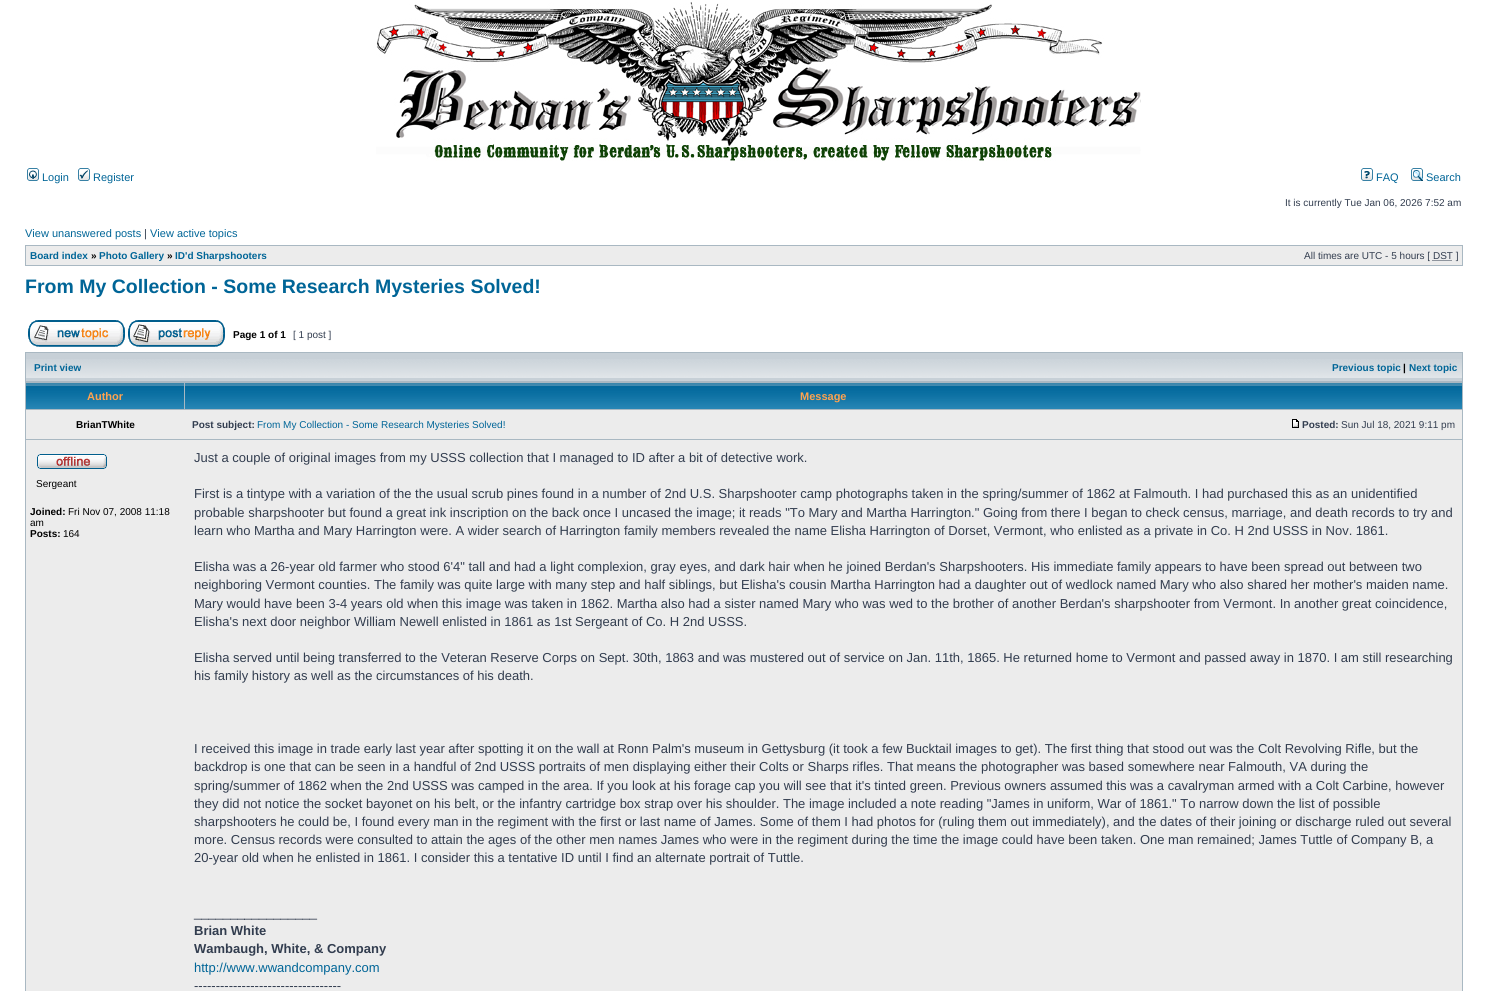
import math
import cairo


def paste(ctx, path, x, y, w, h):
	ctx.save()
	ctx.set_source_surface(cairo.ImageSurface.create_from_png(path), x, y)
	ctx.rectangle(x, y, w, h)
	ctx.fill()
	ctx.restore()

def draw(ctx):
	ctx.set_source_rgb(1, 1, 1)
	ctx.paint()
	paste(ctx, 'media/1.png', 376, 2, 765, 159)
	paste(ctx, 'media/2.png', 27, 168, 12, 13)
	ctx.select_font_face('Liberation Sans')
	ctx.set_font_size(11)
	ctx.set_source_rgb(0, 0.396, 0.592)
	ctx.move_to(42, 181)
	ctx.show_text('Login')
	paste(ctx, 'media/3.png', 78, 168, 12, 13)
	ctx.move_to(93, 181)
	ctx.show_text('Register')
	paste(ctx, 'media/4.png', 1361, 168, 12, 13)
	ctx.move_to(1376, 181)
	ctx.show_text('FAQ')
	paste(ctx, 'media/5.png', 1411, 168, 12, 13)
	ctx.move_to(1426, 181)
	ctx.show_text('Search')
	ctx.set_font_size(10)
	ctx.set_source_rgb(0.196, 0.239, 0.31)
	ctx.move_to(1285, 206)
	ctx.show_text('It is currently Tue Jan 06, 2026 7:52 am')
	ctx.set_font_size(11)
	ctx.set_source_rgb(0, 0.396, 0.592)
	ctx.move_to(25, 237)
	ctx.show_text('View unanswered posts')
	ctx.set_source_rgb(0.196, 0.239, 0.31)
	ctx.move_to(144, 237)
	ctx.show_text('|')
	ctx.set_source_rgb(0, 0.396, 0.592)
	ctx.move_to(150, 237)
	ctx.show_text('View active topics')
	ctx.set_source_rgb(0.663, 0.722, 0.761)
	ctx.rectangle(25, 245, 1438, 21)
	ctx.fill()
	ctx.set_source_rgb(0.925, 0.925, 0.925)
	ctx.rectangle(26, 246, 1436, 19)
	ctx.fill()
	ctx.select_font_face('Liberation Sans', cairo.FONT_SLANT_NORMAL, cairo.FONT_WEIGHT_BOLD)
	ctx.set_font_size(10)
	ctx.set_source_rgb(0, 0.396, 0.592)
	ctx.move_to(30, 259)
	ctx.show_text('Board index')
	ctx.set_source_rgb(0, 0, 0)
	ctx.move_to(91, 259)
	ctx.show_text('»')
	ctx.set_source_rgb(0, 0.396, 0.592)
	ctx.move_to(99, 259)
	ctx.show_text('Photo Gallery')
	ctx.set_source_rgb(0, 0, 0)
	ctx.move_to(167, 259)
	ctx.show_text('»')
	ctx.set_source_rgb(0, 0.396, 0.592)
	ctx.move_to(175, 259)
	ctx.show_text('ID\'d Sharpshooters')
	ctx.select_font_face('Liberation Sans')
	ctx.set_source_rgb(0.196, 0.239, 0.31)
	ctx.move_to(1304, 259)
	ctx.show_text('All times are UTC - 5 hours [ DST ]')
	ctx.new_path()
	ctx.move_to(1432.5, 260.5)
	ctx.line_to(1452.5, 260.5)
	ctx.set_line_width(1)
	ctx.set_dash([1, 1])
	ctx.stroke()
	ctx.select_font_face('Liberation Sans', cairo.FONT_SLANT_NORMAL, cairo.FONT_WEIGHT_BOLD)
	ctx.set_font_size(19.5)
	ctx.set_source_rgb(0, 0.396, 0.592)
	ctx.move_to(25, 293)
	ctx.show_text('From My Collection - Some Research Mysteries Solved!')
	paste(ctx, 'media/6.png', 28, 320, 97, 27)
	paste(ctx, 'media/7.png', 128, 320, 97, 27)
	ctx.set_font_size(10)
	ctx.set_source_rgb(0, 0, 0)
	ctx.move_to(233, 338)
	ctx.show_text('Page 1 of 1')
	ctx.select_font_face('Liberation Sans')
	ctx.set_source_rgb(0.196, 0.239, 0.31)
	ctx.move_to(293, 338)
	ctx.show_text('[ 1 post ]')
	ctx.set_source_rgb(0.663, 0.722, 0.761)
	ctx.rectangle(25, 352, 1438, 639)
	ctx.fill()
	ctx.set_source_rgb(0.78, 0.816, 0.843)
	ctx.rectangle(26, 353, 1436, 28)
	ctx.fill()
	paste(ctx, 'media/8.png', 26, 359, 1436, 19)
	ctx.select_font_face('Liberation Sans', cairo.FONT_SLANT_NORMAL, cairo.FONT_WEIGHT_BOLD)
	ctx.set_source_rgb(0, 0.396, 0.592)
	ctx.move_to(34, 371)
	ctx.show_text('Print view')
	ctx.move_to(1332, 371)
	ctx.show_text('Previous topic')
	ctx.set_source_rgb(0, 0, 0)
	ctx.move_to(1403, 371)
	ctx.show_text('|')
	ctx.set_source_rgb(0, 0.396, 0.592)
	ctx.move_to(1409, 371)
	ctx.show_text('Next topic')
	paste(ctx, 'media/9.png', 26, 383, 158, 26)
	ctx.set_font_size(11)
	ctx.set_source_rgb(1, 0.639, 0.31)
	ctx.move_to(87, 400)
	ctx.show_text('Author')
	paste(ctx, 'media/10.png', 185, 383, 1277, 26)
	ctx.move_to(800, 400)
	ctx.show_text('Message')
	ctx.set_source_rgb(0.925, 0.925, 0.925)
	ctx.rectangle(26, 410, 1436, 29)
	ctx.fill()
	ctx.set_font_size(10)
	ctx.set_source_rgb(0, 0, 0)
	ctx.move_to(76, 428)
	ctx.show_text('BrianTWhite')
	ctx.set_source_rgb(0.196, 0.239, 0.31)
	ctx.move_to(192, 428)
	ctx.show_text('Post subject:')
	ctx.select_font_face('Liberation Sans')
	ctx.set_source_rgb(0, 0.396, 0.592)
	ctx.move_to(257, 428)
	ctx.show_text('From My Collection - Some Research Mysteries Solved!')
	paste(ctx, 'media/11.png', 1292, 419, 7, 9)
	ctx.select_font_face('Liberation Sans', cairo.FONT_SLANT_NORMAL, cairo.FONT_WEIGHT_BOLD)
	ctx.set_source_rgb(0.196, 0.239, 0.31)
	ctx.move_to(1302, 428)
	ctx.show_text('Posted:')
	ctx.select_font_face('Liberation Sans')
	ctx.move_to(1341, 428)
	ctx.show_text('Sun Jul 18, 2021 9:11 pm')
	ctx.set_source_rgb(0.925, 0.925, 0.925)
	ctx.rectangle(26, 440, 1436, 551)
	ctx.fill()
	paste(ctx, 'media/12.png', 37, 454, 70, 15)
	ctx.set_source_rgb(0, 0, 0)
	ctx.move_to(36, 487)
	ctx.show_text('Sergeant')
	ctx.select_font_face('Liberation Sans', cairo.FONT_SLANT_NORMAL, cairo.FONT_WEIGHT_BOLD)
	ctx.move_to(30, 515)
	ctx.show_text('Joined:')
	ctx.select_font_face('Liberation Sans')
	ctx.move_to(68, 515)
	ctx.show_text('Fri Nov 07, 2008 11:18')
	ctx.move_to(30, 526)
	ctx.show_text('am')
	ctx.select_font_face('Liberation Sans', cairo.FONT_SLANT_NORMAL, cairo.FONT_WEIGHT_BOLD)
	ctx.move_to(30, 537)
	ctx.show_text('Posts:')
	ctx.select_font_face('Liberation Sans')
	ctx.move_to(63, 537)
	ctx.show_text('164')
	ctx.set_font_size(13)
	ctx.set_source_rgb(0.196, 0.239, 0.31)
	for x, y, s in [
		(194, 462, 'Just a couple of original images from my USSS collection that I managed to ID after a bit of detective work.'),
		(194, 498, 'First is a tintype with a variation of the the usual scrub pines found in a number of 2nd U.S. Sharpshooter camp photographs taken in the spring/summer of 1862 at Falmouth. I had purchased this as an unidentified'),
		(194, 517, 'probable sharpshooter but found a great ink inscription on the back once I uncased the image; it reads "To Mary and Martha Harrington." Going from there I began to check census, marriage, and death records to try and'),
		(194, 535, 'learn who Martha and Mary Harrington were. A wider search of Harrington family members revealed the name Elisha Harrington of Dorset, Vermont, who enlisted as a private in Co. H 2nd USSS in Nov. 1861.'),
		(194, 571, 'Elisha was a 26-year old farmer who stood 6\'4" tall and had a light complexion, gray eyes, and dark hair when he joined Berdan\'s Sharpshooters. His immediate family appears to have been spread out between two'),
		(194, 589, 'neighboring Vermont counties. The family was quite large with many step and half siblings, but Elisha\'s cousin Martha Harrington had a daughter out of wedlock named Mary who also shared her mother\'s maiden name.'),
		(194, 608, 'Mary would have been 3-4 years old when this image was taken in 1862. Martha also had a sister named Mary who was wed to the brother of another Berdan\'s sharpshooter from Vermont. In another great coincidence,'),
		(194, 626, 'Elisha\'s next door neighbor William Newell enlisted in 1861 as 1st Sergeant of Co. H 2nd USSS.'),
		(194, 662, 'Elisha served until being transferred to the Veteran Reserve Corps on Sept. 30th, 1863 and was mustered out of service on Jan. 11th, 1865. He returned home to Vermont and passed away in 1870. I am still researching'),
		(194, 680, 'his family history as well as the circumstances of his death.'),
		(194, 753, 'I received this image in trade early last year after spotting it on the wall at Ronn Palm\'s museum in Gettysburg (it took a few Bucktail images to get). The first thing that stood out was the Colt Revolving Rifle, but the'),
		(194, 771, 'backdrop is one that can be seen in a handful of 2nd USSS portraits of men displaying either their Colts or Sharps rifles. That means the photographer was based somewhere near Falmouth, VA during the'),
		(194, 790, 'spring/summer of 1862 when the 2nd USSS was camped in the area. If you look at his forage cap you will see that it\'s tinted green. Previous owners assumed this was a cavalryman armed with a Colt Carbine, however'),
		(194, 808, 'they did not notice the socket bayonet on his belt, or the infantry cartridge box strap over his shoulder. The image included a note reading "James in uniform, War of 1861." To narrow down the list of possible'),
		(194, 826, 'sharpshooters he could be, I found every man in the regiment with the first or last name of James. Some of them I had photos for (ruling them out immediately), and the dates of their joining or discharge ruled out several'),
		(194, 844, 'more. Census records were consulted to attain the ages of the other men names James who were in the regiment during the time the image could have been taken. One man remained; James Tuttle of Company B, a'),
		(194, 862, '20-year old when he enlisted in 1861. I consider this a tentative ID until I find an alternate portrait of Tuttle.'),
		(194, 917, '_________________'),
	]:
		ctx.move_to(x, y)
		ctx.show_text(s)
	ctx.select_font_face('Liberation Sans', cairo.FONT_SLANT_NORMAL, cairo.FONT_WEIGHT_BOLD)
	ctx.move_to(194, 935)
	ctx.show_text('Brian White')
	ctx.move_to(194, 953)
	ctx.show_text('Wambaugh, White, & Company')
	ctx.select_font_face('Liberation Sans')
	ctx.set_source_rgb(0, 0.396, 0.592)
	ctx.move_to(194, 972)
	ctx.show_text('http://www.wwandcompany.com')
	ctx.set_source_rgb(0.196, 0.239, 0.31)
	ctx.move_to(194, 990)
	ctx.show_text('----------------------------------')


surface = cairo.ImageSurface(cairo.FORMAT_RGB24, 1488, 991)
ctx = cairo.Context(surface)
options = cairo.FontOptions()
options.set_hint_metrics(cairo.HINT_METRICS_OFF)
options.set_hint_style(cairo.HINT_STYLE_NONE)
ctx.set_font_options(options)
ctx.set_miter_limit(4)
draw(ctx)
surface.write_to_png('image.png')
